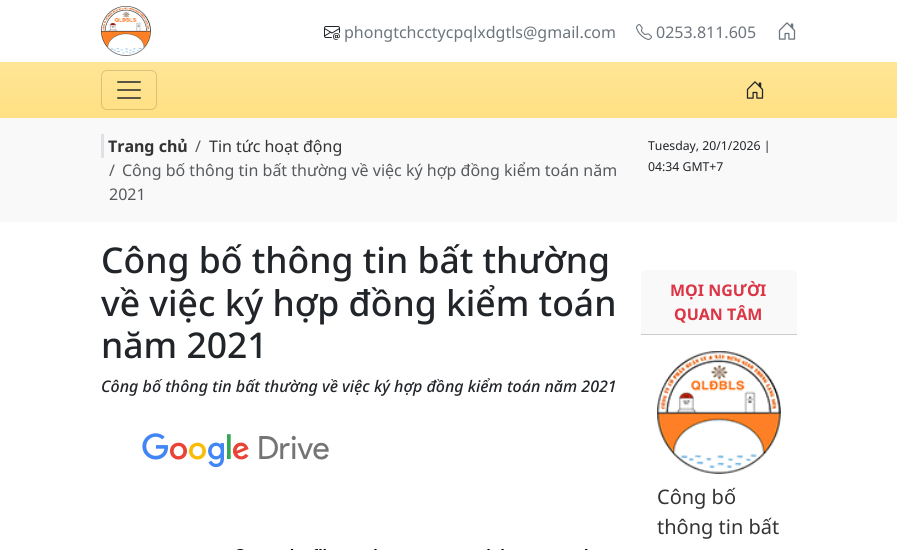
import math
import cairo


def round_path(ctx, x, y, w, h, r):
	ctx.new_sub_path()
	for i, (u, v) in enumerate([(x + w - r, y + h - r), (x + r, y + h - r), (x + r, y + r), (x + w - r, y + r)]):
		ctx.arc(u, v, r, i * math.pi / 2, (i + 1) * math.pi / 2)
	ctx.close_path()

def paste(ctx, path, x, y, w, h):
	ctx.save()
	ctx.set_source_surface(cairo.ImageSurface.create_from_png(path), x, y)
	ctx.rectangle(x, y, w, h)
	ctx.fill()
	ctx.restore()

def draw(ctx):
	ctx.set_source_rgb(1, 1, 1)
	ctx.paint()
	paste(ctx, 'media/1.png', 101, 6, 50, 50)
	paste(ctx, 'media/2.png', 324, 26, 16, 14)
	ctx.select_font_face('Noto Sans')
	ctx.set_font_size(16)
	ctx.set_source_rgb(0.424, 0.459, 0.49)
	ctx.move_to(344, 38)
	ctx.show_text('phongtchcctycpqlxdgtls@gmail.com')
	paste(ctx, 'media/3.png', 636, 24, 16, 16)
	ctx.move_to(656, 38)
	ctx.show_text('0253.811.605')
	paste(ctx, 'media/4.png', 778, 22, 18, 18)
	gradient = cairo.LinearGradient(449, 62, 449, 118)
	gradient.add_color_stop_rgba(0, 1, 0.898, 0.588, 1)
	gradient.add_color_stop_rgba(1, 1, 0.878, 0.514, 1)
	ctx.set_source(gradient)
	ctx.rectangle(0, 62, 897, 56)
	ctx.fill()
	round_path(ctx, 101.5, 70.5, 55, 39, 5.5)
	ctx.set_source_rgba(0, 0, 0, 0.15)
	ctx.set_line_width(1)
	ctx.stroke()
	paste(ctx, 'media/5.png', 117, 81, 24, 18)
	paste(ctx, 'media/6.png', 746, 81, 18, 18)
	ctx.set_source_rgb(0.973, 0.976, 0.98)
	ctx.rectangle(0, 118, 897, 104)
	ctx.fill()
	ctx.set_source_rgb(0.871, 0.886, 0.902)
	ctx.rectangle(101, 134, 3, 24)
	ctx.fill()
	ctx.select_font_face('Noto Sans', cairo.FONT_SLANT_NORMAL, cairo.FONT_WEIGHT_BOLD)
	ctx.set_source_rgb(0.2, 0.2, 0.2)
	ctx.move_to(108, 152)
	ctx.show_text('Trang chủ')
	ctx.select_font_face('Noto Sans')
	ctx.set_source_rgb(0.341, 0.353, 0.365)
	ctx.move_to(195, 152)
	ctx.show_text('/')
	ctx.set_source_rgb(0.2, 0.2, 0.2)
	ctx.move_to(209, 152)
	ctx.show_text('Tin tức hoạt động')
	ctx.set_source_rgb(0.341, 0.353, 0.365)
	for x, y, s in [
		(109, 176, '/'),
		(122, 176, 'Công bố thông tin bất thường về việc ký hợp đồng kiểm toán năm'),
		(109, 200, '2021'),
	]:
		ctx.move_to(x, y)
		ctx.show_text(s)
	ctx.set_font_size(12.25)
	ctx.set_source_rgb(0.129, 0.145, 0.161)
	ctx.move_to(648, 150)
	ctx.show_text('Tuesday, 20/1/2026 |')
	ctx.move_to(648, 171)
	ctx.show_text('04:34 GMT+7')
	ctx.select_font_face('Noto Sans Medium')
	ctx.set_font_size(35.5)
	for x, y, s in [
		(101, 273, 'Công bố thông tin bất thường'),
		(101, 316, 'về việc ký hợp đồng kiểm toán'),
		(101, 358, 'năm 2021'),
	]:
		ctx.move_to(x, y)
		ctx.show_text(s)
	ctx.select_font_face('Noto Sans Medium', cairo.FONT_SLANT_ITALIC)
	ctx.set_font_size(16)
	ctx.move_to(101, 392)
	ctx.show_text('Công bố thông tin bất thường về việc ký hợp đồng kiểm toán năm 2021')
	paste(ctx, 'media/7.png', 142, 433, 446, 117)
	ctx.set_source_rgb(0.973, 0.973, 0.976)
	ctx.new_path()
	ctx.move_to(646, 270)
	ctx.line_to(792, 270)
	ctx.curve_to(795, 270, 797, 272, 797, 275)
	ctx.line_to(797, 335)
	ctx.line_to(641, 335)
	ctx.line_to(641, 275)
	ctx.curve_to(641, 272, 643, 270, 646, 270)
	ctx.close_path()
	ctx.fill()
	ctx.set_source_rgb(0.8, 0.8, 0.804)
	ctx.rectangle(641, 334, 156, 1)
	ctx.fill()
	ctx.select_font_face('Noto Sans', cairo.FONT_SLANT_NORMAL, cairo.FONT_WEIGHT_BOLD)
	ctx.set_source_rgb(0.863, 0.208, 0.271)
	ctx.move_to(670, 296)
	ctx.show_text('MỌI NGƯỜI')
	ctx.move_to(674, 320)
	ctx.show_text('QUAN TÂM')
	paste(ctx, 'media/8.png', 657, 351, 124, 123)
	ctx.select_font_face('Noto Sans')
	ctx.set_font_size(20)
	ctx.set_source_rgb(0.2, 0.2, 0.2)
	ctx.move_to(657, 504)
	ctx.show_text('Công bố')
	ctx.move_to(657, 534)
	ctx.show_text('thông tin bất')


surface = cairo.ImageSurface(cairo.FORMAT_RGB24, 897, 550)
ctx = cairo.Context(surface)
options = cairo.FontOptions()
options.set_hint_metrics(cairo.HINT_METRICS_OFF)
options.set_hint_style(cairo.HINT_STYLE_NONE)
ctx.set_font_options(options)
ctx.set_miter_limit(4)
draw(ctx)
surface.write_to_png('image.png')
